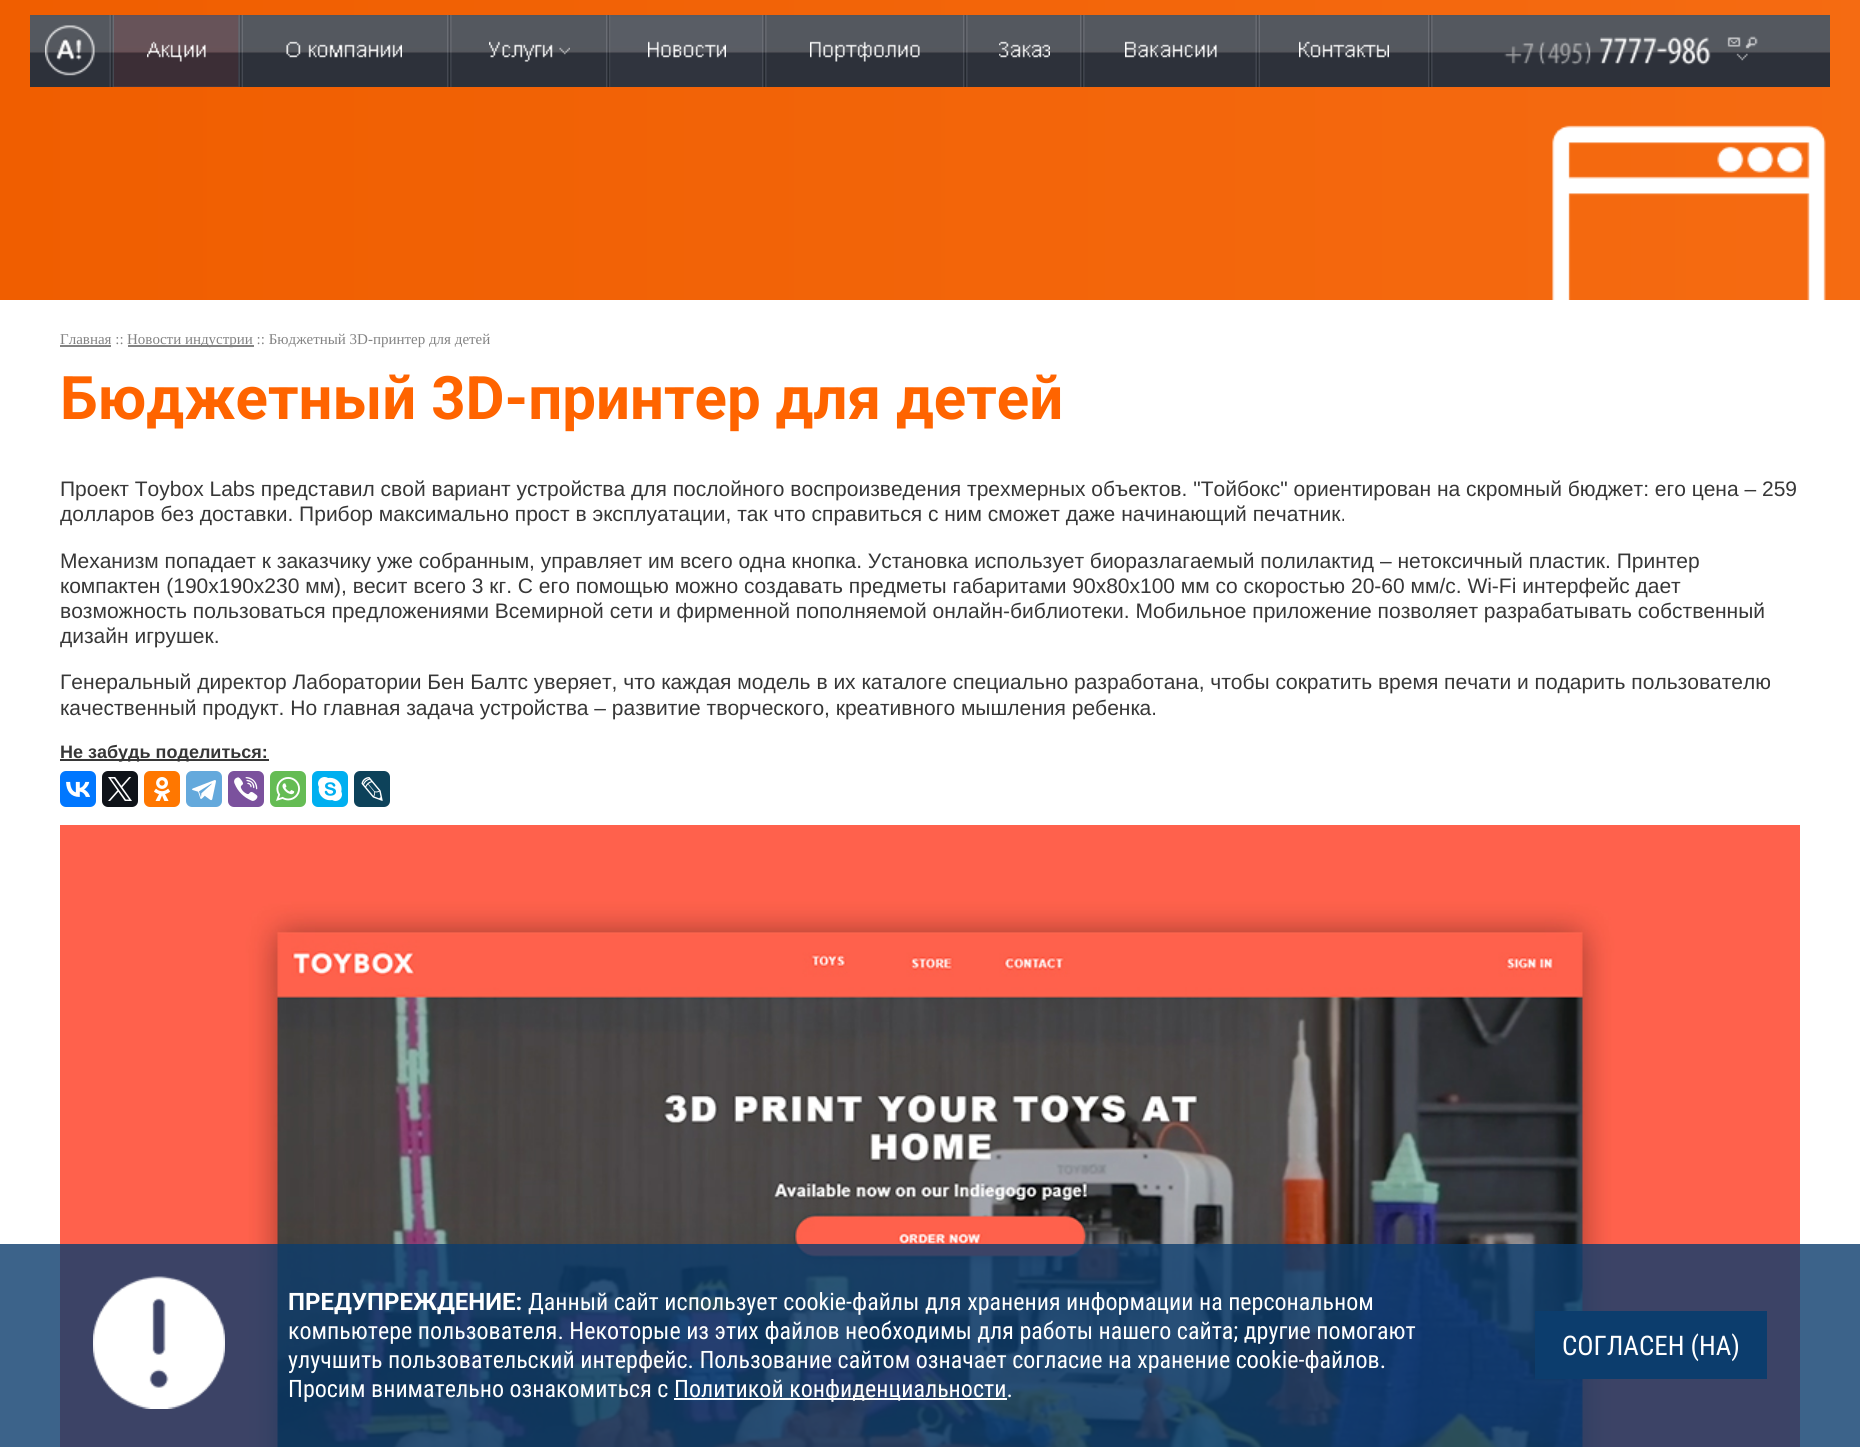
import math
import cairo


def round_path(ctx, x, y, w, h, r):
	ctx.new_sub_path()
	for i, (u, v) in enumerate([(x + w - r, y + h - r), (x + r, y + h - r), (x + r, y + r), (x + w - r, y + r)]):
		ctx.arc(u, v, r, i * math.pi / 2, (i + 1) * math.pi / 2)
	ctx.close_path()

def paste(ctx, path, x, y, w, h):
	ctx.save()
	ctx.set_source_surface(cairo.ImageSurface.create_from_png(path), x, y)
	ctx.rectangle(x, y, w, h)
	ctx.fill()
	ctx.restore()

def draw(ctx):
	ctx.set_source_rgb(1, 1, 1)
	ctx.paint()
	gradient = cairo.LinearGradient(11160, 900, 0, 900)
	gradient.add_color_stop_rgba(0, 1, 0.392, 0, 1)
	gradient.add_color_stop_rgba(0.5, 1, 0.518, 0.208, 1)
	gradient.add_color_stop_rgba(1, 0.941, 0.369, 0, 1)
	ctx.set_source(gradient)
	ctx.rectangle(0, 0, 1860, 300)
	ctx.fill()
	paste(ctx, 'media/1.png', 1552, 125, 274, 175)
	paste(ctx, 'media/2.png', 30, 15, 1800, 72)
	paste(ctx, 'media/3.png', 45, 25, 50, 51)
	paste(ctx, 'media/4.png', 109, 15, 5, 72)
	paste(ctx, 'media/5.png', 114, 15, 125, 72)
	paste(ctx, 'media/6.png', 147, 41, 59, 21)
	paste(ctx, 'media/7.png', 238, 15, 5, 72)
	paste(ctx, 'media/8.png', 286, 41, 116, 17)
	paste(ctx, 'media/9.png', 447, 15, 5, 72)
	paste(ctx, 'media/10.png', 489, 41, 81, 21)
	paste(ctx, 'media/11.png', 606, 15, 5, 72)
	paste(ctx, 'media/12.png', 610, 15, 152, 72)
	paste(ctx, 'media/13.png', 648, 41, 78, 17)
	paste(ctx, 'media/14.png', 762, 15, 5, 72)
	paste(ctx, 'media/15.png', 810, 41, 110, 21)
	paste(ctx, 'media/14.png', 963, 15, 5, 72)
	paste(ctx, 'media/16.png', 999, 41, 51, 17)
	paste(ctx, 'media/9.png', 1080, 15, 5, 72)
	paste(ctx, 'media/17.png', 1125, 41, 92, 17)
	paste(ctx, 'media/18.png', 1255, 15, 5, 72)
	paste(ctx, 'media/19.png', 1299, 41, 90, 17)
	paste(ctx, 'media/14.png', 1428, 15, 5, 72)
	paste(ctx, 'media/20.png', 1504, 36, 254, 29)
	ctx.select_font_face('Liberation Serif')
	ctx.set_font_size(15)
	ctx.set_source_rgb(0.514, 0.514, 0.514)
	ctx.move_to(60, 344)
	ctx.show_text('Главная ::')
	ctx.rectangle(60, 345, 51, 2)
	ctx.fill()
	ctx.rectangle(128, 345, 126, 2)
	ctx.fill()
	ctx.move_to(127, 344)
	ctx.show_text('Новости индустрии :: Бюджетный 3D-принтер для детей')
	ctx.select_font_face('Roboto', cairo.FONT_SLANT_NORMAL, cairo.FONT_WEIGHT_BOLD)
	ctx.set_font_size(60)
	ctx.set_source_rgb(1, 0.392, 0)
	ctx.move_to(60, 419)
	ctx.show_text('Бюджетный 3D-принтер для детей')
	ctx.select_font_face('Liberation Sans')
	ctx.set_font_size(21)
	ctx.set_source_rgb(0.216, 0.216, 0.216)
	for x, y, s in [
		(60, 496, 'Проект Toybox Labs представил свой вариант устройства для послойного воспроизведения трехмерных объектов. "Тойбокс" ориентирован на скромный бюджет: его цена – 259'),
		(60, 521, 'долларов без доставки. Прибор максимально прост в эксплуатации, так что справиться с ним сможет даже начинающий печатник.'),
		(60, 568, 'Механизм попадает к заказчику уже собранным, управляет им всего одна кнопка. Установка использует биоразлагаемый полилактид – нетоксичный пластик. Принтер'),
		(60, 593, 'компактен (190х190х230 мм), весит всего 3 кг. С его помощью можно создавать предметы габаритами 90х80х100 мм со скоростью 20-60 мм/c. Wi-Fi интерфейс дает'),
		(60, 618, 'возможность пользоваться предложениями Всемирной сети и фирменной пополняемой онлайн-библиотеки. Мобильное приложение позволяет разрабатывать собственный'),
		(60, 643, 'дизайн игрушек.'),
		(60, 689, 'Генеральный директор Лаборатории Бен Балтс уверяет, что каждая модель в их каталоге специально разработана, чтобы сократить время печати и подарить пользователю'),
		(60, 715, 'качественный продукт. Но главная задача устройства – развитие творческого, креативного мышления ребенка.'),
	]:
		ctx.move_to(x, y)
		ctx.show_text(s)
	ctx.rectangle(60, 759, 209, 2)
	ctx.fill()
	ctx.select_font_face('Liberation Sans', cairo.FONT_SLANT_NORMAL, cairo.FONT_WEIGHT_BOLD)
	ctx.set_font_size(18)
	ctx.move_to(60, 758)
	ctx.show_text('Не забудь поделиться:')
	ctx.set_source_rgb(0, 0.467, 1)
	round_path(ctx, 60, 771, 36, 36, 6)
	ctx.fill()
	paste(ctx, 'media/21.png', 66, 781, 24, 16)
	ctx.set_source_rgb(0.059, 0.078, 0.098)
	round_path(ctx, 102, 771, 36, 36, 6)
	ctx.fill()
	paste(ctx, 'media/22.png', 108, 777, 24, 24)
	ctx.set_source_rgb(1, 0.467, 0)
	round_path(ctx, 144, 771, 36, 36, 6)
	ctx.fill()
	paste(ctx, 'media/23.png', 154, 777, 17, 24)
	ctx.set_source_rgb(0.392, 0.663, 0.863)
	round_path(ctx, 186, 771, 36, 36, 6)
	ctx.fill()
	paste(ctx, 'media/24.png', 192, 780, 24, 21)
	ctx.set_source_rgb(0.482, 0.318, 0.616)
	round_path(ctx, 228, 771, 36, 36, 6)
	ctx.fill()
	paste(ctx, 'media/25.png', 234, 777, 24, 24)
	ctx.set_source_rgb(0.396, 0.737, 0.329)
	round_path(ctx, 270, 771, 36, 36, 6)
	ctx.fill()
	paste(ctx, 'media/26.png', 276, 777, 24, 24)
	ctx.set_source_rgb(0, 0.686, 0.941)
	round_path(ctx, 312, 771, 36, 36, 6)
	ctx.fill()
	paste(ctx, 'media/27.png', 318, 777, 24, 24)
	ctx.set_source_rgb(0.051, 0.259, 0.353)
	round_path(ctx, 354, 771, 36, 36, 6)
	ctx.fill()
	paste(ctx, 'media/28.png', 361, 777, 22, 24)
	paste(ctx, 'media/29.png', 60, 825, 1740, 622)
	ctx.set_source_rgba(0.047, 0.239, 0.427, 0.8)
	ctx.rectangle(0, 1244, 1860, 203)
	ctx.fill()
	paste(ctx, 'media/30.png', 93, 1276, 132, 133)
	ctx.select_font_face('Roboto', cairo.FONT_SLANT_NORMAL, cairo.FONT_WEIGHT_BOLD)
	ctx.set_font_size(24)
	ctx.set_source_rgb(1, 1, 1)
	ctx.move_to(288, 1310)
	ctx.show_text('ПРЕДУПРЕЖДЕНИЕ:')
	ctx.select_font_face('Roboto Condensed')
	for x, y, s in [
		(528, 1310, 'Данный сайт использует cookie-файлы для хранения информации на персональном'),
		(288, 1339, 'компьютере пользователя. Некоторые из этих файлов необходимы для работы нашего сайта; другие помогают'),
		(288, 1368, 'улучшить пользовательский интерфейс. Пользование сайтом означает согласие на хранение cookie-файлов.'),
		(288, 1397, 'Просим внимательно ознакомиться с'),
	]:
		ctx.move_to(x, y)
		ctx.show_text(s)
	ctx.rectangle(674, 1398, 333, 2)
	ctx.fill()
	ctx.move_to(674, 1397)
	ctx.show_text('Политикой конфиденциальности.')
	ctx.set_source_rgb(0.047, 0.239, 0.427)
	ctx.rectangle(1535, 1311, 232, 68)
	ctx.fill()
	ctx.set_font_size(27)
	ctx.set_source_rgb(1, 1, 1)
	ctx.move_to(1562, 1355)
	ctx.show_text('СОГЛАСЕН (НА)')


surface = cairo.ImageSurface(cairo.FORMAT_RGB24, 1860, 1447)
ctx = cairo.Context(surface)
options = cairo.FontOptions()
options.set_hint_metrics(cairo.HINT_METRICS_OFF)
options.set_hint_style(cairo.HINT_STYLE_NONE)
ctx.set_font_options(options)
ctx.set_miter_limit(4)
draw(ctx)
surface.write_to_png('image.png')
